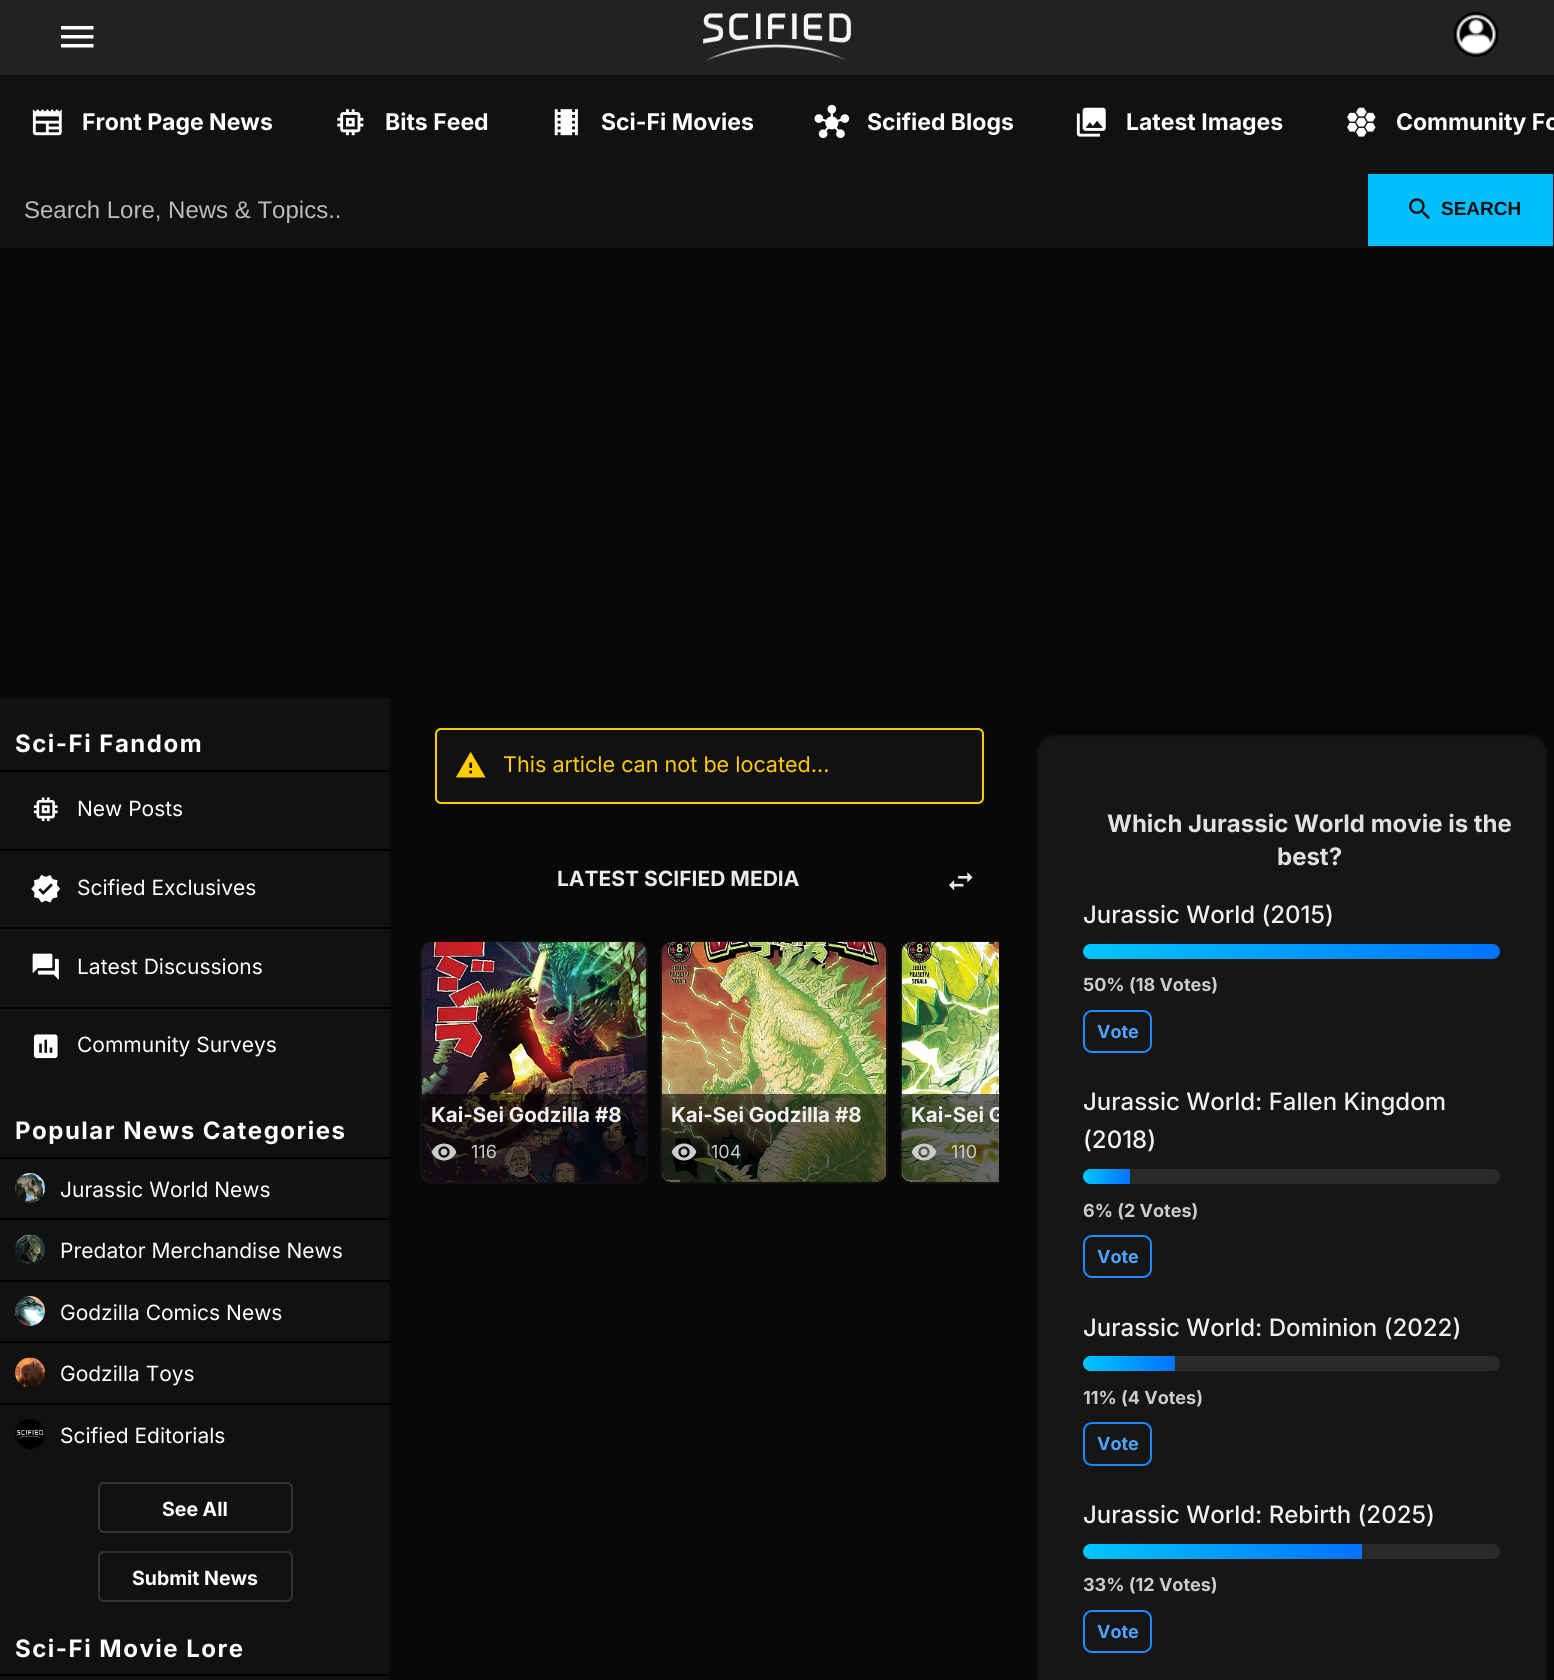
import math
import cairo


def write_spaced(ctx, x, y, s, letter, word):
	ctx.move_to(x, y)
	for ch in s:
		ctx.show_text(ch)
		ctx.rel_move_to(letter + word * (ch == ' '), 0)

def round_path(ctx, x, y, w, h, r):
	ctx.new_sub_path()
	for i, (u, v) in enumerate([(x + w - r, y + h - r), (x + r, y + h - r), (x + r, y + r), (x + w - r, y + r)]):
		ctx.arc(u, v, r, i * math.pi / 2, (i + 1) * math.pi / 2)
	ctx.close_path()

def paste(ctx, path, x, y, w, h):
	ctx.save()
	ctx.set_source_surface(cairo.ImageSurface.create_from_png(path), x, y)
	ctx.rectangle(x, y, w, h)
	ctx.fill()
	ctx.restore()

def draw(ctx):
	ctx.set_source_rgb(0.035, 0.035, 0.035)
	ctx.paint()
	ctx.set_source_rgb(0.133, 0.133, 0.133)
	ctx.rectangle(0, 0, 1554, 75)
	ctx.fill()
	ctx.set_source_rgb(1, 1, 1)
	ctx.new_path()
	ctx.move_to(61, 26)
	ctx.line_to(93.5, 26)
	ctx.line_to(93.5, 29.5)
	ctx.line_to(61, 29.5)
	ctx.close_path()
	ctx.move_to(61, 38.5)
	ctx.line_to(61, 35)
	ctx.line_to(93.5, 35)
	ctx.line_to(93.5, 38.5)
	ctx.close_path()
	ctx.move_to(61, 47.5)
	ctx.line_to(61, 44)
	ctx.line_to(93.5, 44)
	ctx.line_to(93.5, 47.5)
	ctx.close_path()
	ctx.fill()
	paste(ctx, 'media/1.png', 702, 13, 150, 48)
	paste(ctx, 'media/2.png', 1453, 12, 46, 45)
	ctx.set_source_rgb(0.067, 0.067, 0.067)
	ctx.rectangle(0, 75, 1554, 173)
	ctx.fill()
	paste(ctx, 'media/3.png', 32, 109, 30, 27)
	ctx.select_font_face('Inter', cairo.FONT_SLANT_NORMAL, cairo.FONT_WEIGHT_BOLD)
	ctx.set_font_size(23)
	ctx.set_source_rgb(1, 1, 1)
	ctx.move_to(82, 130)
	ctx.show_text('Front Page News')
	paste(ctx, 'media/4.png', 337, 109, 27, 27)
	ctx.move_to(385, 130)
	ctx.show_text('Bits Feed')
	paste(ctx, 'media/5.png', 554, 109, 24, 27)
	ctx.move_to(601, 130)
	ctx.show_text('Sci-Fi Movies')
	paste(ctx, 'media/6.png', 814, 104, 36, 35)
	ctx.move_to(867, 130)
	ctx.show_text('Scified Blogs')
	paste(ctx, 'media/7.png', 1076, 107, 30, 30)
	ctx.move_to(1126, 130)
	ctx.show_text('Latest Images')
	paste(ctx, 'media/8.png', 1347, 107, 29, 30)
	ctx.move_to(1396, 130)
	ctx.show_text('Community Fo')
	ctx.select_font_face('Liberation Sans')
	ctx.set_font_size(24)
	ctx.set_source_rgb(0.733, 0.733, 0.733)
	ctx.move_to(24, 218)
	ctx.show_text('Search Lore, News & Topics..')
	ctx.set_source_rgb(0, 0.749, 1)
	ctx.rectangle(1368, 174, 185, 72)
	ctx.fill()
	paste(ctx, 'media/9.png', 1409, 198, 21, 22)
	ctx.select_font_face('Liberation Sans', cairo.FONT_SLANT_NORMAL, cairo.FONT_WEIGHT_BOLD)
	ctx.set_font_size(19)
	ctx.set_source_rgb(0.067, 0.067, 0.067)
	ctx.move_to(1441, 215)
	ctx.show_text('SEARCH')
	ctx.rectangle(0, 698, 390, 982)
	ctx.fill()
	ctx.select_font_face('Inter', cairo.FONT_SLANT_NORMAL, cairo.FONT_WEIGHT_BOLD)
	ctx.set_font_size(24)
	ctx.set_source_rgb(1, 1, 1)
	write_spaced(ctx, 15, 752, 'Sci-Fi Fandom', 1.5, 0)
	ctx.set_source_rgb(0.004, 0.004, 0.004)
	ctx.rectangle(0, 770, 390, 2)
	ctx.fill()
	paste(ctx, 'media/10.png', 33, 797, 25, 25)
	ctx.select_font_face('Inter')
	ctx.set_font_size(21)
	ctx.set_source_rgb(1, 1, 1)
	ctx.move_to(77, 816)
	ctx.show_text('New Posts')
	ctx.set_source_rgb(0.004, 0.004, 0.004)
	ctx.rectangle(0, 849, 390, 2)
	ctx.fill()
	paste(ctx, 'media/11.png', 31, 875, 30, 28)
	ctx.set_source_rgb(1, 1, 1)
	ctx.move_to(77, 895)
	ctx.show_text('Scified Exclusives')
	ctx.set_source_rgb(0.004, 0.004, 0.004)
	ctx.rectangle(0, 927, 390, 2)
	ctx.fill()
	paste(ctx, 'media/12.png', 32, 953, 27, 27)
	ctx.set_source_rgb(1, 1, 1)
	ctx.move_to(77, 974)
	ctx.show_text('Latest Discussions')
	ctx.set_source_rgb(0.004, 0.004, 0.004)
	ctx.rectangle(0, 1007, 390, 2)
	ctx.fill()
	paste(ctx, 'media/13.png', 33, 1034, 25, 25)
	ctx.set_source_rgb(1, 1, 1)
	ctx.move_to(77, 1052)
	ctx.show_text('Community Surveys')
	ctx.select_font_face('Inter', cairo.FONT_SLANT_NORMAL, cairo.FONT_WEIGHT_BOLD)
	ctx.set_font_size(24)
	write_spaced(ctx, 15, 1139, 'Popular News Categories', 1.5, 0)
	ctx.set_source_rgb(0.004, 0.004, 0.004)
	ctx.rectangle(0, 1157, 390, 2)
	ctx.fill()
	paste(ctx, 'media/14.png', 15, 1173, 30, 30)
	ctx.select_font_face('Inter')
	ctx.set_font_size(21)
	ctx.set_source_rgb(1, 1, 1)
	ctx.move_to(60, 1197)
	ctx.show_text('Jurassic World News')
	ctx.set_source_rgb(0.004, 0.004, 0.004)
	ctx.rectangle(0, 1218, 390, 2)
	ctx.fill()
	paste(ctx, 'media/15.png', 15, 1234, 30, 31)
	ctx.set_source_rgb(1, 1, 1)
	ctx.move_to(60, 1258)
	ctx.show_text('Predator Merchandise News')
	ctx.set_source_rgb(0.004, 0.004, 0.004)
	ctx.rectangle(0, 1280, 390, 2)
	ctx.fill()
	paste(ctx, 'media/16.png', 15, 1296, 30, 30)
	ctx.set_source_rgb(1, 1, 1)
	ctx.move_to(60, 1320)
	ctx.show_text('Godzilla Comics News')
	ctx.set_source_rgb(0.004, 0.004, 0.004)
	ctx.rectangle(0, 1341, 390, 2)
	ctx.fill()
	paste(ctx, 'media/17.png', 15, 1357, 30, 30)
	ctx.set_source_rgb(1, 1, 1)
	ctx.move_to(60, 1381)
	ctx.show_text('Godzilla Toys')
	ctx.set_source_rgb(0.004, 0.004, 0.004)
	ctx.rectangle(0, 1403, 390, 2)
	ctx.fill()
	paste(ctx, 'media/18.png', 15, 1419, 30, 30)
	ctx.set_source_rgb(1, 1, 1)
	ctx.move_to(60, 1443)
	ctx.show_text('Scified Editorials')
	round_path(ctx, 99, 1483, 193, 49, 5)
	ctx.set_source_rgb(0.2, 0.2, 0.2)
	ctx.stroke()
	ctx.select_font_face('Inter', cairo.FONT_SLANT_NORMAL, cairo.FONT_WEIGHT_BOLD)
	ctx.set_font_size(19.5)
	ctx.set_source_rgb(1, 1, 1)
	ctx.move_to(162, 1516)
	ctx.show_text('See All')
	round_path(ctx, 99, 1552, 193, 49, 5)
	ctx.set_source_rgb(0.2, 0.2, 0.2)
	ctx.stroke()
	ctx.set_source_rgb(1, 1, 1)
	ctx.move_to(132, 1585)
	ctx.show_text('Submit News')
	ctx.set_font_size(24)
	write_spaced(ctx, 15, 1657, 'Sci-Fi Movie Lore', 1.5, 0)
	ctx.set_source_rgb(0.004, 0.004, 0.004)
	ctx.rectangle(0, 1674, 390, 2)
	ctx.fill()
	ctx.set_source_rgb(0.067, 0.067, 0.067)
	round_path(ctx, 436, 729, 547, 74, 5)
	ctx.fill_preserve()
	ctx.set_source_rgb(1, 0.8, 0)
	ctx.stroke()
	paste(ctx, 'media/19.png', 455, 752, 31, 26)
	ctx.select_font_face('Inter')
	ctx.set_font_size(21.6)
	ctx.move_to(503, 772)
	ctx.show_text('This article can not be located...')
	ctx.select_font_face('Inter', cairo.FONT_SLANT_NORMAL, cairo.FONT_WEIGHT_BOLD)
	ctx.set_font_size(21)
	ctx.set_source_rgb(0.918, 0.918, 0.918)
	ctx.move_to(557, 886)
	ctx.show_text('LATEST SCIFIED MEDIA')
	paste(ctx, 'media/20.png', 949, 872, 24, 19)
	ctx.set_source_rgb(0.118, 0.118, 0.118)
	round_path(ctx, 421, 942, 226, 241, 11)
	ctx.fill_preserve()
	ctx.set_source_rgb(0.067, 0.067, 0.067)
	ctx.stroke()
	paste(ctx, 'media/21.png', 421, 942, 226, 240)
	ctx.set_source_rgba(0, 0, 0, 0.6)
	ctx.new_path()
	ctx.move_to(422, 1094)
	ctx.line_to(647, 1094)
	ctx.line_to(647, 1171)
	ctx.curve_to(647, 1177, 642, 1182, 636, 1182)
	ctx.line_to(433, 1182)
	ctx.curve_to(427, 1182, 422, 1177, 422, 1171)
	ctx.close_path()
	ctx.fill()
	ctx.set_font_size(20.5)
	ctx.set_source_rgb(0.941, 0.941, 0.941)
	ctx.move_to(431, 1122)
	ctx.show_text('Kai-Sei Godzilla #8')
	paste(ctx, 'media/22.png', 431, 1143, 26, 18)
	ctx.select_font_face('Inter')
	ctx.set_font_size(18)
	ctx.set_source_rgb(0.8, 0.8, 0.8)
	ctx.move_to(471, 1158)
	ctx.show_text('116')
	ctx.set_source_rgb(0.118, 0.118, 0.118)
	round_path(ctx, 661, 942, 226, 241, 11)
	ctx.fill_preserve()
	ctx.set_source_rgb(0.067, 0.067, 0.067)
	ctx.stroke()
	paste(ctx, 'media/23.png', 661, 942, 226, 240)
	ctx.set_source_rgba(0, 0, 0, 0.6)
	ctx.new_path()
	ctx.move_to(662, 1094)
	ctx.line_to(887, 1094)
	ctx.line_to(887, 1171)
	ctx.curve_to(887, 1177, 882, 1182, 876, 1182)
	ctx.line_to(673, 1182)
	ctx.curve_to(667, 1182, 662, 1177, 662, 1171)
	ctx.close_path()
	ctx.fill()
	ctx.select_font_face('Inter', cairo.FONT_SLANT_NORMAL, cairo.FONT_WEIGHT_BOLD)
	ctx.set_font_size(20.5)
	ctx.set_source_rgb(0.941, 0.941, 0.941)
	ctx.move_to(671, 1122)
	ctx.show_text('Kai-Sei Godzilla #8')
	paste(ctx, 'media/24.png', 671, 1143, 26, 18)
	ctx.select_font_face('Inter')
	ctx.set_font_size(18)
	ctx.set_source_rgb(0.8, 0.8, 0.8)
	ctx.move_to(711, 1158)
	ctx.show_text('104')
	ctx.set_source_rgb(0.118, 0.118, 0.118)
	ctx.new_path()
	ctx.move_to(912, 941)
	ctx.line_to(999, 941)
	ctx.line_to(999, 1184)
	ctx.line_to(912, 1184)
	ctx.curve_to(905.5, 1184, 900, 1178.5, 900, 1172)
	ctx.line_to(900, 953)
	ctx.curve_to(900, 946.5, 905.5, 941, 912, 941)
	ctx.close_path()
	ctx.fill()
	ctx.save()
	ctx.rectangle(420, 929, 579, 267)
	ctx.clip()
	round_path(ctx, 901, 942, 226, 241, 11)
	ctx.set_source_rgb(0.067, 0.067, 0.067)
	ctx.stroke()
	ctx.restore()
	paste(ctx, 'media/25.png', 901, 942, 98, 240)
	ctx.set_source_rgba(0, 0, 0, 0.6)
	ctx.new_path()
	ctx.move_to(902, 1094)
	ctx.line_to(999, 1094)
	ctx.line_to(999, 1182)
	ctx.line_to(913, 1182)
	ctx.curve_to(907, 1182, 902, 1177, 902, 1171)
	ctx.close_path()
	ctx.fill()
	ctx.save()
	ctx.rectangle(911, 1103, 88, 24)
	ctx.clip()
	ctx.select_font_face('Inter', cairo.FONT_SLANT_NORMAL, cairo.FONT_WEIGHT_BOLD)
	ctx.set_font_size(20.5)
	ctx.set_source_rgb(0.941, 0.941, 0.941)
	ctx.move_to(911, 1122)
	ctx.show_text('Kai-Sei G')
	ctx.restore()
	paste(ctx, 'media/26.png', 911, 1143, 26, 18)
	ctx.set_source_rgb(0.8, 0.8, 0.8)
	ctx.move_to(951, 1158)
	ctx.show_text('110')
	ctx.set_source_rgb(0.086, 0.086, 0.086)
	round_path(ctx, 1038, 736, 508, 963, 17)
	ctx.fill_preserve()
	ctx.set_source_rgb(0.071, 0.071, 0.071)
	ctx.stroke()
	ctx.select_font_face('Inter', cairo.FONT_SLANT_NORMAL, cairo.FONT_WEIGHT_BOLD)
	ctx.set_font_size(24)
	ctx.set_source_rgb(0.882, 0.882, 0.882)
	ctx.move_to(1107, 832)
	ctx.show_text('Which Jurassic World movie is the')
	ctx.move_to(1277, 865)
	ctx.show_text('best?')
	ctx.select_font_face('Inter Medium')
	ctx.set_source_rgb(0.941, 0.941, 0.941)
	ctx.move_to(1083, 923)
	ctx.show_text('Jurassic World (2015)')
	gradient = cairo.LinearGradient(1083, 951, 1500, 951)
	gradient.add_color_stop_rgba(0, 0, 0.776, 1, 1)
	gradient.add_color_stop_rgba(1, 0, 0.447, 1, 1)
	ctx.set_source(gradient)
	round_path(ctx, 1083, 944, 417, 15, 7.5)
	ctx.fill()
	ctx.select_font_face('Inter', cairo.FONT_SLANT_NORMAL, cairo.FONT_WEIGHT_BOLD)
	ctx.set_font_size(18)
	ctx.set_source_rgb(0.8, 0.8, 0.8)
	ctx.move_to(1083, 991)
	ctx.show_text('50% (18 Votes)')
	round_path(ctx, 1084, 1011, 67, 41, 8)
	ctx.set_source_rgb(0.106, 0.549, 1)
	ctx.stroke()
	ctx.set_source_rgb(0.302, 0.639, 1)
	ctx.move_to(1097, 1038)
	ctx.show_text('Vote')
	ctx.select_font_face('Inter Medium')
	ctx.set_font_size(24)
	ctx.set_source_rgb(0.941, 0.941, 0.941)
	ctx.move_to(1083, 1110)
	ctx.show_text('Jurassic World: Fallen Kingdom')
	ctx.move_to(1083, 1148)
	ctx.show_text('(2018)')
	ctx.set_source_rgb(0.165, 0.165, 0.165)
	round_path(ctx, 1083, 1169, 417, 15, 7.5)
	ctx.fill()
	gradient = cairo.LinearGradient(1083, 1176, 1130, 1176)
	gradient.add_color_stop_rgba(0, 0, 0.776, 1, 1)
	gradient.add_color_stop_rgba(1, 0, 0.447, 1, 1)
	ctx.set_source(gradient)
	ctx.new_path()
	ctx.move_to(1090.5, 1169)
	ctx.line_to(1130, 1169)
	ctx.line_to(1130, 1184)
	ctx.line_to(1090.5, 1184)
	ctx.curve_to(1086.5, 1184, 1083, 1180.5, 1083, 1176.5)
	ctx.curve_to(1083, 1172.5, 1086.5, 1169, 1090.5, 1169)
	ctx.close_path()
	ctx.fill()
	ctx.select_font_face('Inter', cairo.FONT_SLANT_NORMAL, cairo.FONT_WEIGHT_BOLD)
	ctx.set_font_size(18)
	ctx.set_source_rgb(0.8, 0.8, 0.8)
	ctx.move_to(1083, 1217)
	ctx.show_text('6% (2 Votes)')
	round_path(ctx, 1084, 1236, 67, 41, 8)
	ctx.set_source_rgb(0.106, 0.549, 1)
	ctx.stroke()
	ctx.set_source_rgb(0.302, 0.639, 1)
	ctx.move_to(1097, 1263)
	ctx.show_text('Vote')
	ctx.select_font_face('Inter Medium')
	ctx.set_font_size(24)
	ctx.set_source_rgb(0.941, 0.941, 0.941)
	ctx.move_to(1083, 1336)
	ctx.show_text('Jurassic World: Dominion (2022)')
	ctx.set_source_rgb(0.165, 0.165, 0.165)
	round_path(ctx, 1083, 1356, 417, 15, 7.5)
	ctx.fill()
	gradient = cairo.LinearGradient(1083, 1364, 1175, 1364)
	gradient.add_color_stop_rgba(0, 0, 0.776, 1, 1)
	gradient.add_color_stop_rgba(1, 0, 0.447, 1, 1)
	ctx.set_source(gradient)
	ctx.new_path()
	ctx.move_to(1090.5, 1356)
	ctx.line_to(1175, 1356)
	ctx.line_to(1175, 1371)
	ctx.line_to(1090.5, 1371)
	ctx.curve_to(1086.5, 1371, 1083, 1367.5, 1083, 1363.5)
	ctx.curve_to(1083, 1359.5, 1086.5, 1356, 1090.5, 1356)
	ctx.close_path()
	ctx.fill()
	ctx.select_font_face('Inter', cairo.FONT_SLANT_NORMAL, cairo.FONT_WEIGHT_BOLD)
	ctx.set_font_size(18)
	ctx.set_source_rgb(0.8, 0.8, 0.8)
	ctx.move_to(1083, 1404)
	ctx.show_text('11% (4 Votes)')
	round_path(ctx, 1084, 1423, 67, 42, 8)
	ctx.set_source_rgb(0.106, 0.549, 1)
	ctx.stroke()
	ctx.set_source_rgb(0.302, 0.639, 1)
	ctx.move_to(1097, 1450)
	ctx.show_text('Vote')
	ctx.select_font_face('Inter Medium')
	ctx.set_font_size(24)
	ctx.set_source_rgb(0.941, 0.941, 0.941)
	ctx.move_to(1083, 1523)
	ctx.show_text('Jurassic World: Rebirth (2025)')
	ctx.set_source_rgb(0.165, 0.165, 0.165)
	round_path(ctx, 1083, 1544, 417, 15, 7.5)
	ctx.fill()
	gradient = cairo.LinearGradient(1083, 1551, 1362, 1551)
	gradient.add_color_stop_rgba(0, 0, 0.776, 1, 1)
	gradient.add_color_stop_rgba(1, 0, 0.447, 1, 1)
	ctx.set_source(gradient)
	ctx.new_path()
	ctx.move_to(1090.5, 1544)
	ctx.line_to(1362, 1544)
	ctx.line_to(1362, 1559)
	ctx.line_to(1090.5, 1559)
	ctx.curve_to(1086.5, 1559, 1083, 1555.5, 1083, 1551.5)
	ctx.curve_to(1083, 1547.5, 1086.5, 1544, 1090.5, 1544)
	ctx.close_path()
	ctx.fill()
	ctx.select_font_face('Inter', cairo.FONT_SLANT_NORMAL, cairo.FONT_WEIGHT_BOLD)
	ctx.set_font_size(18)
	ctx.set_source_rgb(0.8, 0.8, 0.8)
	ctx.move_to(1083, 1591)
	ctx.show_text('33% (12 Votes)')
	round_path(ctx, 1084, 1611, 67, 41, 8)
	ctx.set_source_rgb(0.106, 0.549, 1)
	ctx.stroke()
	ctx.set_source_rgb(0.302, 0.639, 1)
	ctx.move_to(1097, 1638)
	ctx.show_text('Vote')


surface = cairo.ImageSurface(cairo.FORMAT_RGB24, 1554, 1680)
ctx = cairo.Context(surface)
options = cairo.FontOptions()
options.set_hint_metrics(cairo.HINT_METRICS_OFF)
options.set_hint_style(cairo.HINT_STYLE_NONE)
ctx.set_font_options(options)
ctx.set_miter_limit(4)
draw(ctx)
surface.write_to_png('image.png')
